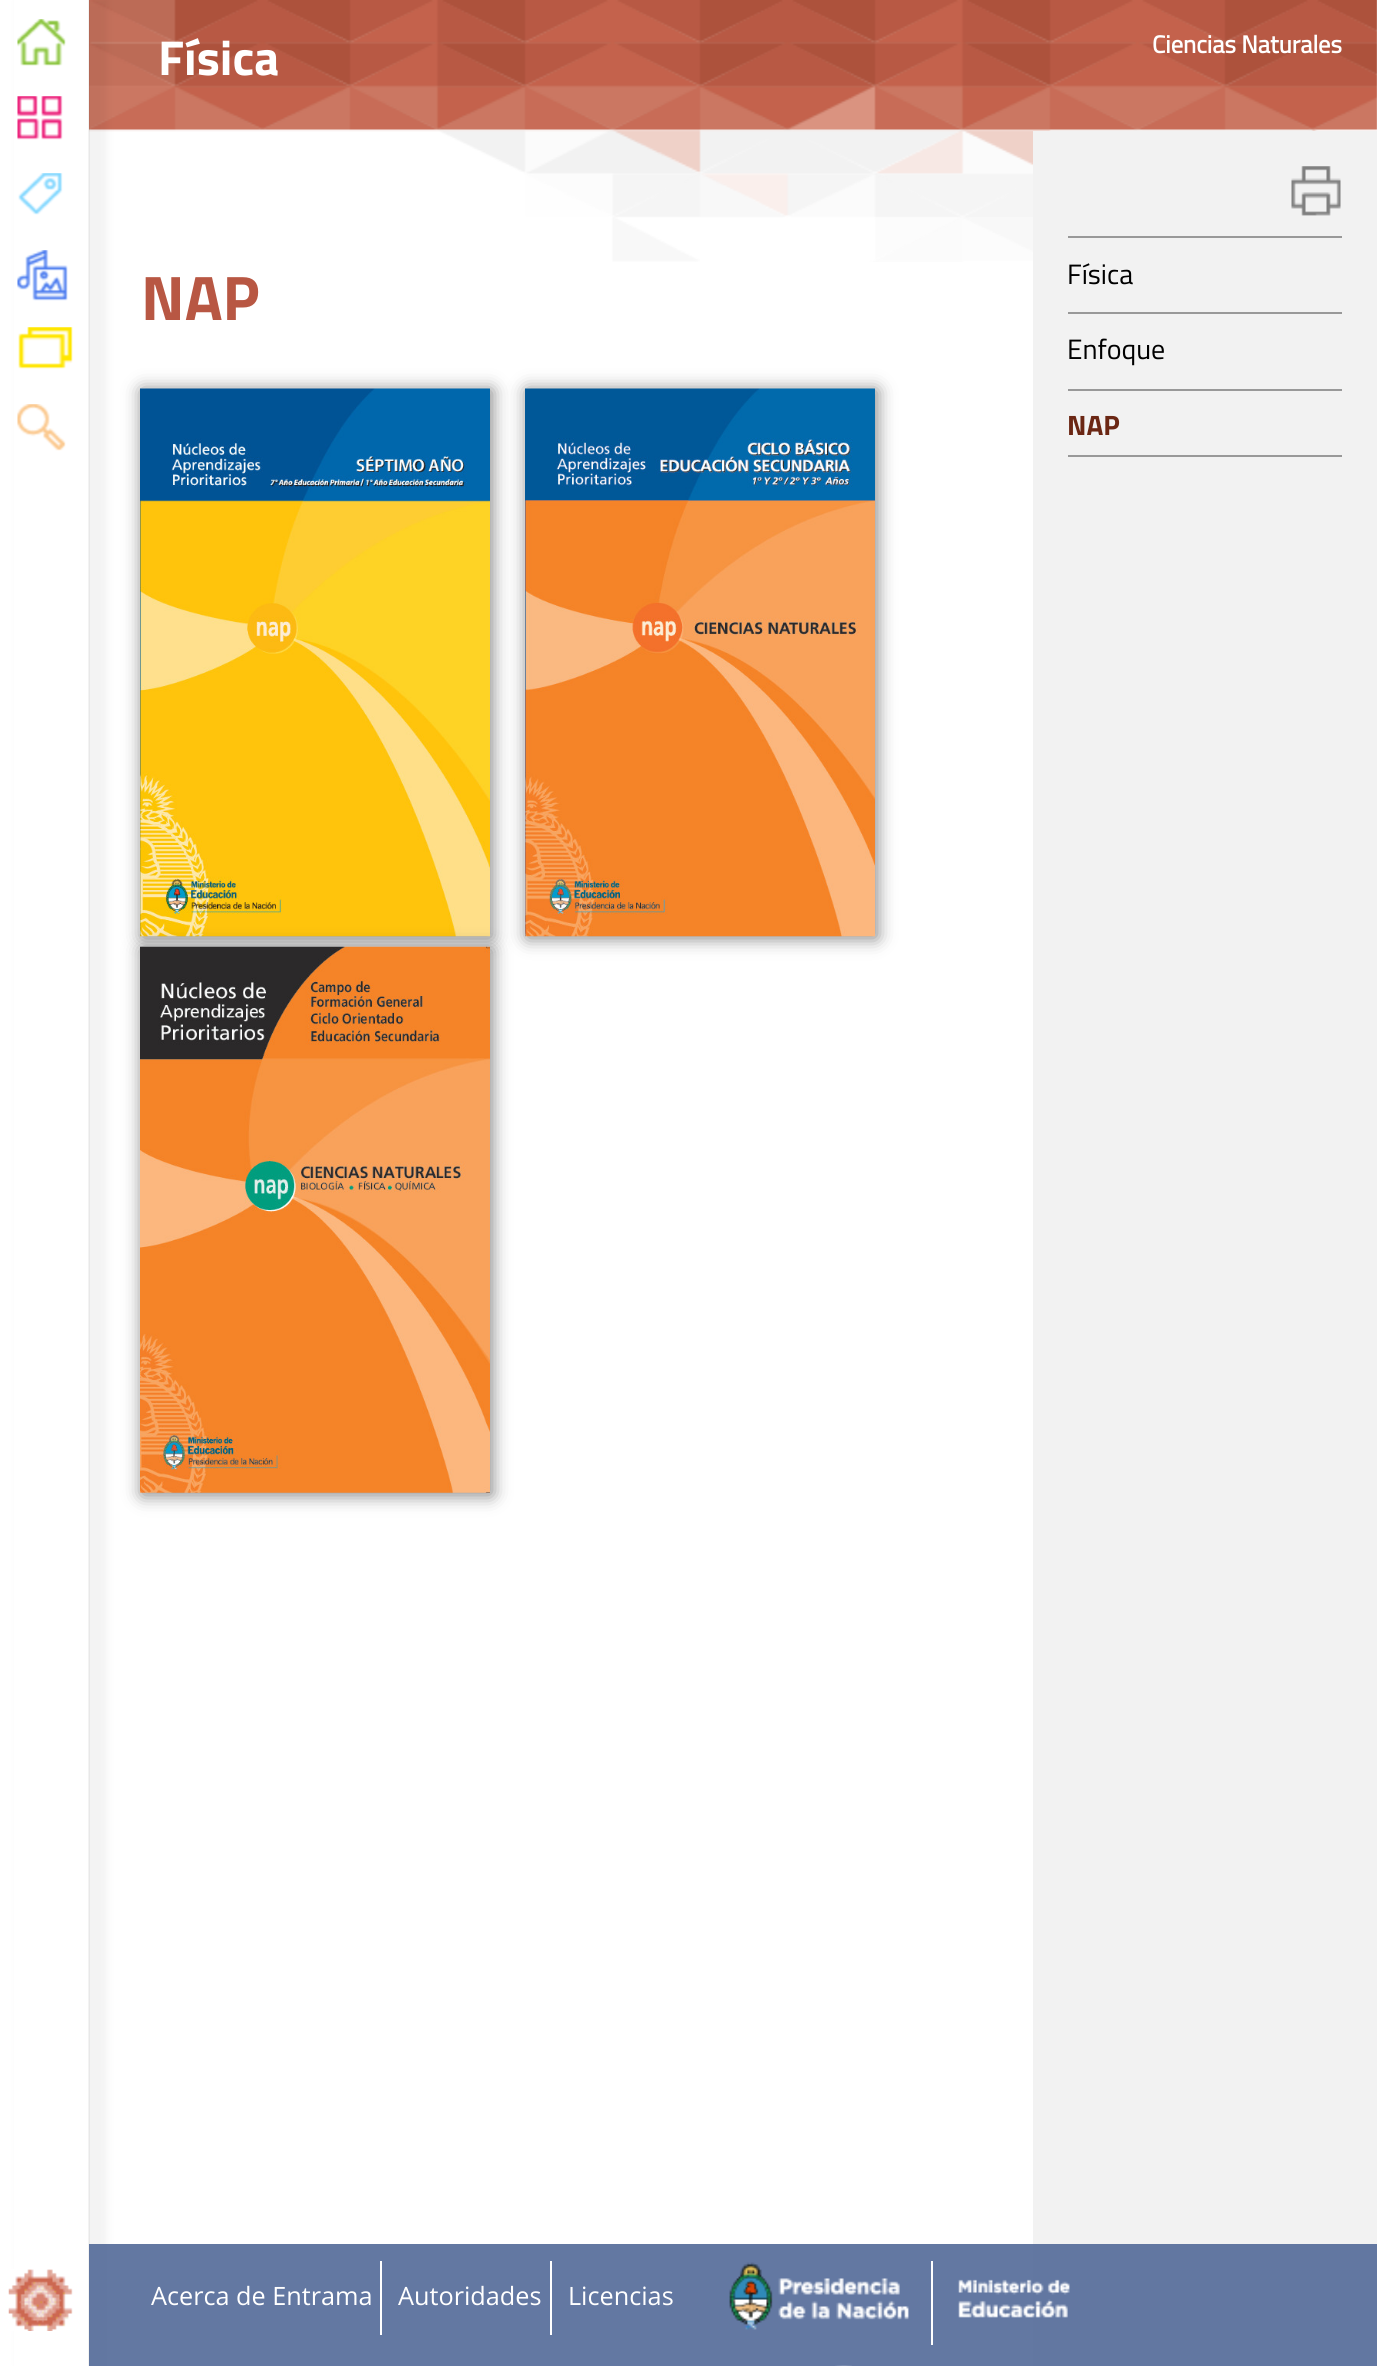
import math
import cairo


def round_path(ctx, x, y, w, h, r):
	ctx.new_sub_path()
	for i, (u, v) in enumerate([(x + w - r, y + h - r), (x + r, y + h - r), (x + r, y + r), (x + w - r, y + r)]):
		ctx.arc(u, v, r, i * math.pi / 2, (i + 1) * math.pi / 2)
	ctx.close_path()

def blur_box(ctx, x, y, w, h, r, blur, alpha):
	ctx.push_group_with_content(cairo.CONTENT_ALPHA)
	ctx.set_operator(cairo.OPERATOR_SOURCE)
	for i in range(15, -16, -2):
		e = blur * i / 6
		if min(w, h) + 2 * e > 0:
			ctx.set_source_rgba(0, 0, 0, alpha * math.erfc((i - 1) / 8.5) / 2)
			round_path(ctx, x - e, y - e, w + 2 * e, h + 2 * e, max(0, min(r + e + blur * .6, min(w, h) / 2 + e)))
			ctx.fill()
	ctx.mask(ctx.pop_group())

def paste(ctx, path, x, y, w, h):
	ctx.save()
	ctx.set_source_surface(cairo.ImageSurface.create_from_png(path), x, y)
	ctx.rectangle(x, y, w, h)
	ctx.fill()
	ctx.restore()

def draw(ctx):
	ctx.set_source_rgb(1, 1, 1)
	ctx.paint()
	paste(ctx, 'media/8.png', 89, 0, 1288, 262)
	ctx.set_source_rgb(0, 0, 0)
	blur_box(ctx, 18, 0, 89, 2366, 0, 4.5, 0.05)
	ctx.set_source_rgb(1, 1, 1)
	ctx.rectangle(14, 0, 75, 2366)
	ctx.fill()
	ctx.set_source_rgba(0, 0, 0, 0.05)
	ctx.rectangle(88, 0, 2, 2366)
	ctx.fill()
	paste(ctx, 'media/1.png', 17, 19, 49, 47)
	paste(ctx, 'media/2.png', 17, 96, 46, 44)
	paste(ctx, 'media/3.png', 18, 173, 45, 42)
	paste(ctx, 'media/4.png', 17, 250, 51, 51)
	paste(ctx, 'media/5.png', 18, 327, 55, 42)
	paste(ctx, 'media/6.png', 17, 404, 49, 47)
	paste(ctx, 'media/7.png', 8, 2269, 65, 62)
	ctx.select_font_face('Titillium', cairo.FONT_SLANT_NORMAL, cairo.FONT_WEIGHT_BOLD)
	ctx.set_font_size(49)
	ctx.set_source_rgb(1, 1, 1)
	ctx.move_to(158, 75)
	ctx.show_text('Física')
	ctx.select_font_face('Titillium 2', cairo.FONT_SLANT_NORMAL, cairo.FONT_WEIGHT_BOLD)
	ctx.set_font_size(24.5)
	ctx.move_to(1152, 53)
	ctx.show_text('Ciencias Naturales')
	ctx.select_font_face('Titillium', cairo.FONT_SLANT_NORMAL, cairo.FONT_WEIGHT_BOLD)
	ctx.set_font_size(63)
	ctx.set_source_rgb(0.722, 0.341, 0.263)
	ctx.move_to(141, 320)
	ctx.show_text('NAP')
	ctx.set_source_rgb(0, 0, 0)
	blur_box(ctx, 142, 390, 350, 548, 0, 9, 0.5)
	paste(ctx, 'media/9.png', 140, 388, 350, 549)
	blur_box(ctx, 527, 390, 350, 548, 0, 9, 0.5)
	paste(ctx, 'media/10.png', 525, 388, 350, 549)
	blur_box(ctx, 142, 949, 350, 546, 0, 9, 0.5)
	paste(ctx, 'media/11.png', 140, 946, 350, 547)
	ctx.set_source_rgb(0.949, 0.949, 0.949)
	ctx.rectangle(1033, 131, 344, 2235)
	ctx.fill()
	paste(ctx, 'media/12.png', 1291, 166, 50, 50)
	ctx.set_source_rgb(0.6, 0.6, 0.6)
	ctx.rectangle(1068, 455, 274, 2)
	ctx.fill()
	ctx.rectangle(1068, 236, 274, 2)
	ctx.fill()
	ctx.select_font_face('Titillium')
	ctx.set_font_size(28)
	ctx.set_source_rgb(0, 0, 0)
	ctx.move_to(1067, 284)
	ctx.show_text('Física')
	ctx.set_source_rgb(0.6, 0.6, 0.6)
	ctx.rectangle(1068, 312, 274, 2)
	ctx.fill()
	ctx.set_source_rgb(0, 0, 0)
	ctx.move_to(1067, 359)
	ctx.show_text('Enfoque')
	ctx.set_source_rgb(0.6, 0.6, 0.6)
	ctx.rectangle(1068, 389, 274, 2)
	ctx.fill()
	ctx.select_font_face('Titillium', cairo.FONT_SLANT_NORMAL, cairo.FONT_WEIGHT_BOLD)
	ctx.set_source_rgb(0.42, 0.153, 0.082)
	ctx.move_to(1067, 435)
	ctx.show_text('NAP')
	ctx.set_source_rgba(0.325, 0.416, 0.596, 0.9)
	ctx.rectangle(89, 2244, 1288, 122)
	ctx.fill()
	ctx.set_source_rgb(1, 1, 1)
	ctx.rectangle(380, 2261, 2, 74)
	ctx.fill()
	ctx.select_font_face('Open Sans')
	ctx.set_font_size(25.25)
	ctx.move_to(151, 2305)
	ctx.show_text('Acerca de Entrama')
	ctx.rectangle(550, 2261, 2, 74)
	ctx.fill()
	ctx.move_to(398, 2305)
	ctx.show_text('Autoridades')
	ctx.move_to(568, 2305)
	ctx.show_text('Licencias')
	paste(ctx, 'media/13.png', 729, 2262, 180, 68)
	ctx.rectangle(931, 2261, 2, 84)
	ctx.fill()
	paste(ctx, 'media/14.png', 958, 2279, 112, 39)
	paste(ctx, 'media/15.png', 835, 2365, 17, 1)


surface = cairo.ImageSurface(cairo.FORMAT_RGB24, 1377, 2366)
ctx = cairo.Context(surface)
options = cairo.FontOptions()
options.set_hint_metrics(cairo.HINT_METRICS_OFF)
options.set_hint_style(cairo.HINT_STYLE_NONE)
ctx.set_font_options(options)
ctx.set_miter_limit(4)
draw(ctx)
surface.write_to_png('image.png')
